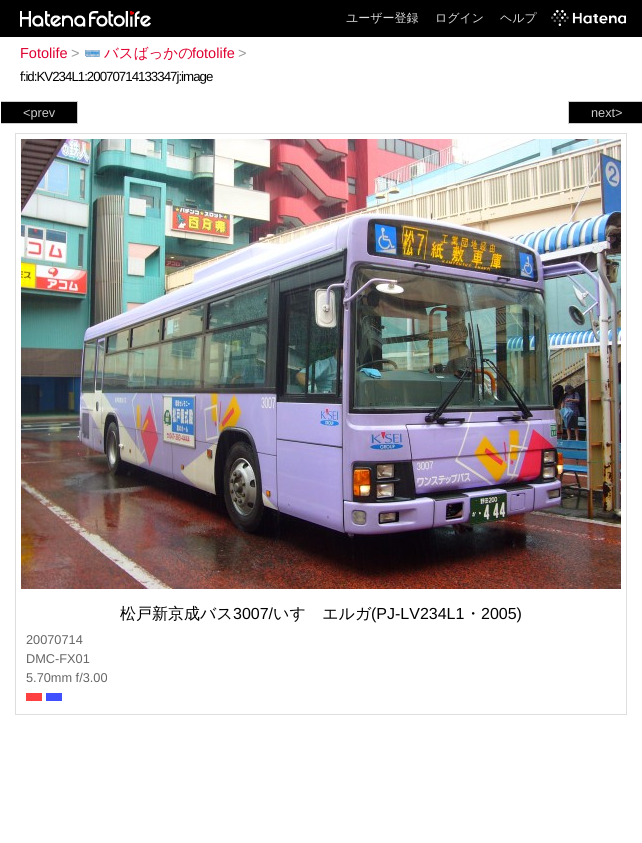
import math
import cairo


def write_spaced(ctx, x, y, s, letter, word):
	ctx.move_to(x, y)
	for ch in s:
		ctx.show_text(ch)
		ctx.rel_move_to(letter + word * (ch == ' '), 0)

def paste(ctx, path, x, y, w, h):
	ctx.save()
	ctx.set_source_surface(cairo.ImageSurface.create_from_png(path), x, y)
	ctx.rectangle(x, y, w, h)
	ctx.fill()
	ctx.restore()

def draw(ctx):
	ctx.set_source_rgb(1, 1, 1)
	ctx.paint()
	ctx.set_source_rgb(0, 0, 0)
	ctx.rectangle(0, 0, 642, 37)
	ctx.fill()
	paste(ctx, 'media/1.png', 20, 11, 66, 16)
	paste(ctx, 'media/2.png', 89, 11, 62, 16)
	ctx.select_font_face('WenQuanYi Zen Hei Medium')
	ctx.set_font_size(12)
	ctx.set_source_rgb(0.867, 0.867, 0.867)
	for x, y, s in [
		(346, 22, 'ユーザー登録'),
		(435, 22, 'ログイン'),
		(500, 22, 'ヘルプ'),
	]:
		ctx.move_to(x, y)
		ctx.show_text(s)
	paste(ctx, 'media/3.png', 551, 10, 75, 16)
	ctx.select_font_face('Liberation Sans')
	ctx.set_font_size(14.5)
	ctx.set_source_rgb(0.871, 0, 0.184)
	ctx.move_to(20, 58)
	ctx.show_text('Fotolife')
	ctx.set_source_rgb(0.6, 0.6, 0.6)
	ctx.move_to(71, 58)
	ctx.show_text('>')
	paste(ctx, 'media/4.png', 85, 50, 15, 7)
	ctx.select_font_face('WenQuanYi Zen Hei Medium')
	ctx.set_source_rgb(0.871, 0, 0.184)
	ctx.move_to(104, 58)
	ctx.show_text('バスばっかの')
	ctx.select_font_face('Liberation Sans')
	ctx.move_to(192, 58)
	ctx.show_text('fotolife')
	ctx.set_source_rgb(0.6, 0.6, 0.6)
	ctx.move_to(238, 58)
	ctx.show_text('>')
	ctx.set_font_size(13.3)
	ctx.set_source_rgb(0, 0, 0)
	write_spaced(ctx, 20, 81, 'f:id:KV234L1:20070714133347j:image', -1, 0)
	ctx.rectangle(1, 102, 76, 21)
	ctx.fill()
	ctx.set_source_rgb(0.8, 0.8, 0.8)
	ctx.rectangle(1, 101, 77, 1)
	ctx.rectangle(77, 101, 1, 23)
	ctx.rectangle(1, 123, 77, 1)
	ctx.fill()
	ctx.set_font_size(12.75)
	ctx.move_to(23, 117)
	ctx.show_text('<prev')
	ctx.set_source_rgb(0, 0, 0)
	ctx.rectangle(569, 102, 73, 21)
	ctx.fill()
	ctx.set_source_rgb(0.8, 0.8, 0.8)
	ctx.rectangle(568, 101, 74, 1)
	ctx.rectangle(568, 123, 74, 1)
	ctx.rectangle(568, 101, 1, 23)
	ctx.fill()
	ctx.move_to(591, 117)
	ctx.show_text('next>')
	ctx.rectangle(15.5, 133.5, 611, 581)
	ctx.set_source_rgb(0.871, 0.871, 0.871)
	ctx.set_line_width(1)
	ctx.stroke()
	paste(ctx, 'media/5.png', 21, 139, 600, 450)
	ctx.select_font_face('WenQuanYi Zen Hei Medium')
	ctx.set_font_size(16)
	ctx.set_source_rgb(0, 0, 0)
	ctx.move_to(120, 619)
	ctx.show_text('松戸新京成バス')
	ctx.select_font_face('Liberation Sans')
	ctx.move_to(233, 619)
	ctx.show_text('3007/')
	ctx.select_font_face('WenQuanYi Zen Hei Medium')
	ctx.move_to(273, 619)
	ctx.show_text('いすゞエルガ')
	ctx.select_font_face('Liberation Sans')
	ctx.move_to(371, 619)
	ctx.show_text('(PJ-LV234L1')
	ctx.select_font_face('WenQuanYi Zen Hei Medium')
	ctx.move_to(465, 619)
	ctx.show_text('・')
	ctx.select_font_face('Liberation Sans')
	ctx.move_to(481, 619)
	ctx.show_text('2005)')
	ctx.set_font_size(12.75)
	ctx.set_source_rgb(0.4, 0.4, 0.4)
	for x, y, s in [
		(26, 644, '20070714'),
		(26, 663, 'DMC-FX01'),
		(26, 682, '5.70mm f/3.00'),
	]:
		ctx.move_to(x, y)
		ctx.show_text(s)
	ctx.set_source_rgb(1, 0.251, 0.251)
	ctx.rectangle(26, 693, 16, 8)
	ctx.fill()
	ctx.set_source_rgb(0.251, 0.314, 1)
	ctx.rectangle(46, 693, 16, 8)
	ctx.fill()


surface = cairo.ImageSurface(cairo.FORMAT_RGB24, 642, 843)
ctx = cairo.Context(surface)
options = cairo.FontOptions()
options.set_hint_metrics(cairo.HINT_METRICS_OFF)
options.set_hint_style(cairo.HINT_STYLE_NONE)
ctx.set_font_options(options)
ctx.set_miter_limit(4)
draw(ctx)
surface.write_to_png('image.png')
